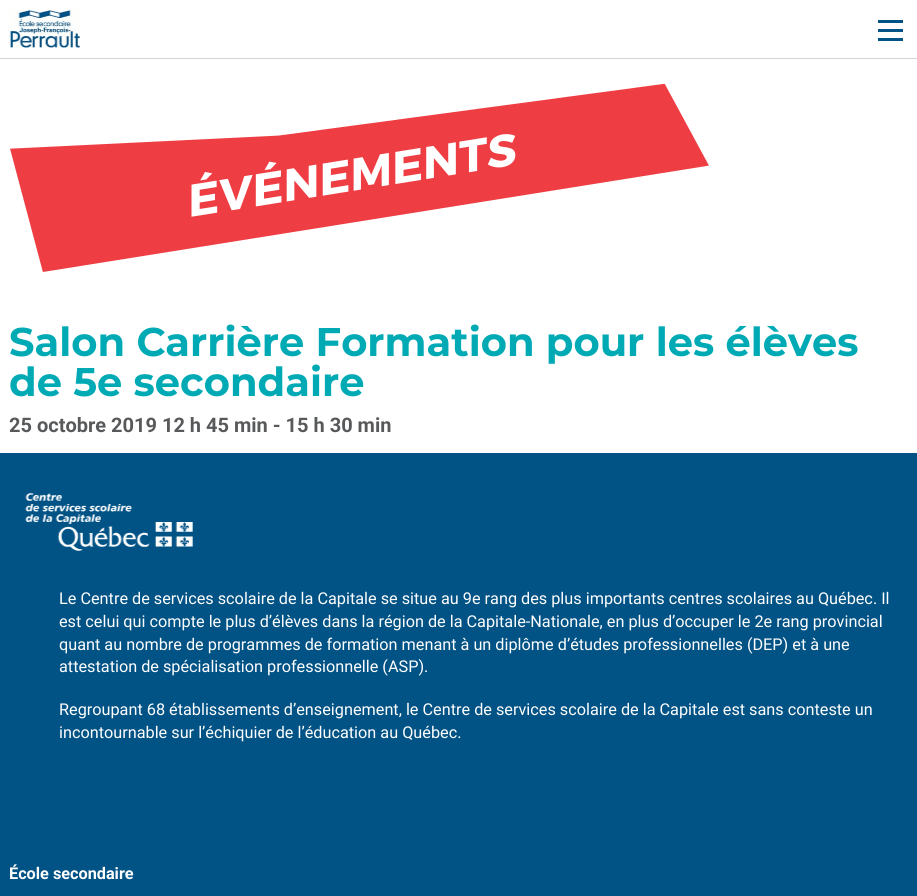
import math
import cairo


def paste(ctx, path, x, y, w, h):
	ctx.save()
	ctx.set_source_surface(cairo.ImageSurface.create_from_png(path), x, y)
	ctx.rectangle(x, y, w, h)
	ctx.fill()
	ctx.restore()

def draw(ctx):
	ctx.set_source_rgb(1, 1, 1)
	ctx.paint()
	ctx.set_source_rgb(0.824, 0.827, 0.831)
	ctx.rectangle(0, 58, 917, 1)
	ctx.fill()
	paste(ctx, 'media/1.png', 9, 10, 71, 38)
	ctx.set_source_rgb(0.004, 0.322, 0.522)
	ctx.rectangle(878, 38, 25, 3)
	ctx.rectangle(878, 29, 25, 3)
	ctx.rectangle(878, 20, 25, 3)
	ctx.fill()
	paste(ctx, 'media/2.png', 10, 84, 699, 188)
	ctx.select_font_face('Montserrat', cairo.FONT_SLANT_NORMAL, cairo.FONT_WEIGHT_BOLD)
	ctx.set_font_size(40)
	ctx.set_source_rgb(0, 0.667, 0.71)
	ctx.move_to(9, 356)
	ctx.show_text('Salon Carrière Formation pour les élèves')
	ctx.move_to(9, 396)
	ctx.show_text('de 5e secondaire')
	ctx.select_font_face('Roboto', cairo.FONT_SLANT_NORMAL, cairo.FONT_WEIGHT_BOLD)
	ctx.set_font_size(20)
	ctx.set_source_rgb(0.345, 0.349, 0.357)
	ctx.move_to(9, 432)
	ctx.show_text('25 octobre 2019 12 h 45 min - 15 h 30 min')
	ctx.set_source_rgb(0.004, 0.322, 0.522)
	ctx.rectangle(0, 453, 917, 443)
	ctx.fill()
	paste(ctx, 'media/3.png', 25, 493, 168, 58)
	ctx.select_font_face('Roboto')
	ctx.set_font_size(16.25)
	ctx.set_source_rgb(0.996, 0.996, 0.996)
	for x, y, s in [
		(59, 604, 'Le Centre de services scolaire de la Capitale se situe au 9e rang des plus importants centres scolaires au Québec. Il'),
		(59, 627, 'est celui qui compte le plus d’élèves dans la région de la Capitale-Nationale, en plus d’occuper le 2e rang provincial'),
		(59, 650, 'quant au nombre de programmes de formation menant à un diplôme d’études professionnelles (DEP) et à une'),
		(59, 672, 'attestation de spécialisation professionnelle (ASP).'),
		(59, 715, 'Regroupant 68 établissements d’enseignement, le Centre de services scolaire de la Capitale est sans conteste un'),
		(59, 738, 'incontournable sur l’échiquier de l’éducation au Québec.'),
	]:
		ctx.move_to(x, y)
		ctx.show_text(s)
	ctx.select_font_face('Roboto', cairo.FONT_SLANT_NORMAL, cairo.FONT_WEIGHT_BOLD)
	ctx.move_to(9, 879)
	ctx.show_text('École secondaire')


surface = cairo.ImageSurface(cairo.FORMAT_RGB24, 917, 896)
ctx = cairo.Context(surface)
options = cairo.FontOptions()
options.set_hint_metrics(cairo.HINT_METRICS_OFF)
options.set_hint_style(cairo.HINT_STYLE_NONE)
ctx.set_font_options(options)
ctx.set_miter_limit(4)
draw(ctx)
surface.write_to_png('image.png')
